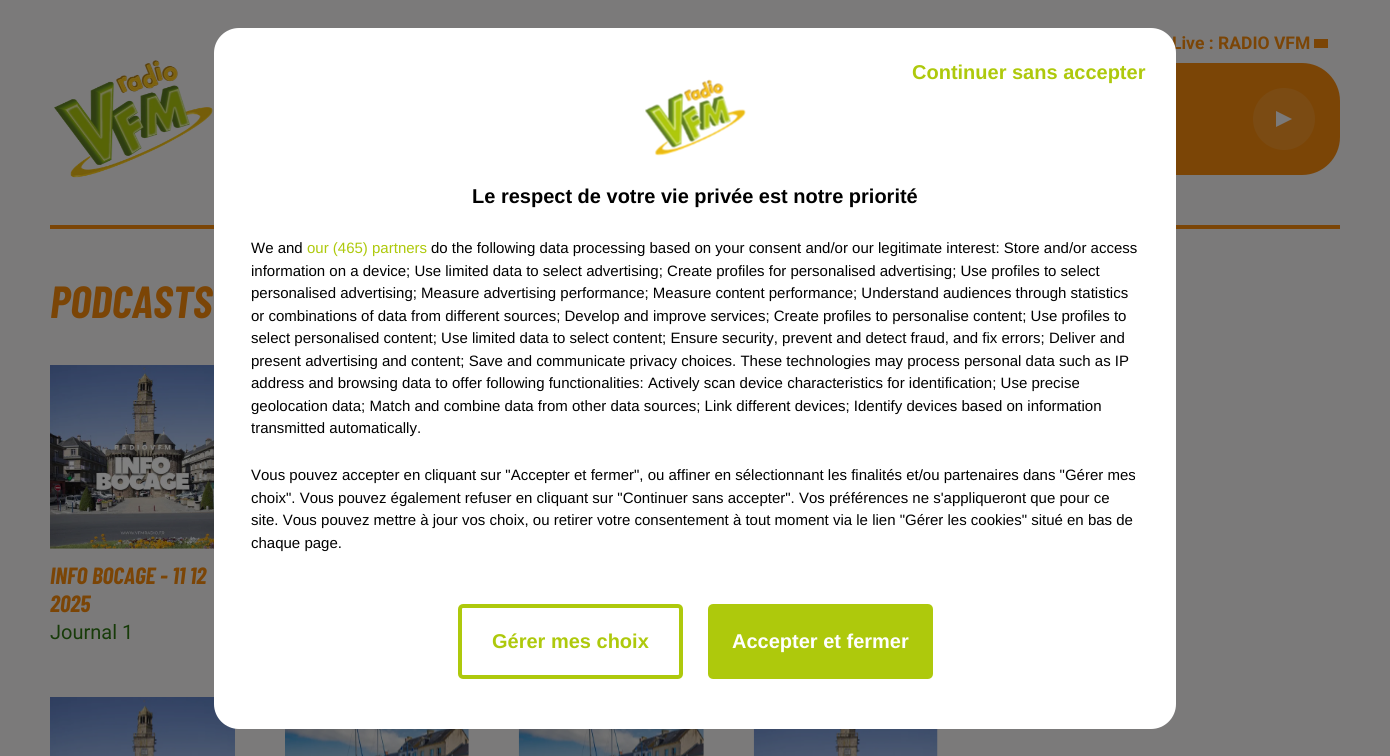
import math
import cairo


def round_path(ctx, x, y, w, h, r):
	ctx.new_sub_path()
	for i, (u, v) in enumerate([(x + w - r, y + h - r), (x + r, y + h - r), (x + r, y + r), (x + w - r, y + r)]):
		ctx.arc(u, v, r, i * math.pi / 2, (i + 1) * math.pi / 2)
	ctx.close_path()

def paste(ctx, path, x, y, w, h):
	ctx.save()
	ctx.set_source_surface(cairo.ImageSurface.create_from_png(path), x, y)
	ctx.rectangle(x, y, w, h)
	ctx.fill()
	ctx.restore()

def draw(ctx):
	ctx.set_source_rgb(0.482, 0.478, 0.478)
	ctx.paint()
	ctx.select_font_face('Roboto', cairo.FONT_SLANT_NORMAL, cairo.FONT_WEIGHT_BOLD)
	ctx.set_font_size(17.5)
	ctx.set_source_rgb(0.482, 0.271, 0.027)
	ctx.move_to(1172, 49)
	ctx.show_text('Live : RADIO VFM')
	ctx.rectangle(1314, 39, 14, 9)
	ctx.fill()
	round_path(ctx, 865, 63, 475, 112, 38)
	ctx.fill()
	ctx.set_source_rgb(0.482, 0.294, 0.075)
	ctx.arc(1284, 119, 31, 0, 2 * math.pi)
	ctx.fill()
	ctx.set_source_rgb(0.482, 0.478, 0.478)
	ctx.new_path()
	ctx.move_to(1292, 119)
	ctx.line_to(1276, 127)
	ctx.line_to(1276, 111)
	ctx.close_path()
	ctx.fill()
	paste(ctx, 'media/1.png', 54, 60, 159, 118)
	ctx.set_source_rgb(0.482, 0.271, 0.027)
	ctx.rectangle(50, 225, 1290, 4)
	ctx.fill()
	ctx.select_font_face('Barlow Condensed', cairo.FONT_SLANT_ITALIC, cairo.FONT_WEIGHT_BOLD)
	ctx.set_font_size(45)
	ctx.move_to(50, 318)
	ctx.show_text('PODCASTS')
	paste(ctx, 'media/2.png', 50, 365, 164, 184)
	ctx.set_font_size(23.5)
	ctx.move_to(50, 584)
	ctx.show_text('INFO BOCAGE - 11 12')
	ctx.move_to(50, 612)
	ctx.show_text('2025')
	ctx.select_font_face('Roboto')
	ctx.set_font_size(20)
	ctx.set_source_rgb(0.09, 0.231, 0.039)
	ctx.move_to(50, 639)
	ctx.show_text('Journal 1')
	paste(ctx, 'media/3.png', 50, 697, 185, 59)
	paste(ctx, 'media/4.png', 285, 729, 184, 27)
	paste(ctx, 'media/5.png', 518, 729, 186, 27)
	paste(ctx, 'media/6.png', 753, 729, 185, 27)
	ctx.set_source_rgb(1, 1, 1)
	round_path(ctx, 214, 28, 962, 701, 25)
	ctx.fill()
	ctx.select_font_face('Liberation Sans', cairo.FONT_SLANT_NORMAL, cairo.FONT_WEIGHT_BOLD)
	ctx.set_source_rgb(0.682, 0.788, 0.047)
	ctx.move_to(912, 79)
	ctx.show_text('Continuer sans accepter')
	round_path(ctx, 460, 606, 221, 71, 3)
	ctx.set_line_width(4)
	ctx.stroke()
	ctx.move_to(492, 648)
	ctx.show_text('Gérer mes choix')
	round_path(ctx, 710, 606, 221, 71, 3)
	ctx.fill_preserve()
	ctx.stroke()
	ctx.set_source_rgb(1, 1, 1)
	ctx.move_to(732, 648)
	ctx.show_text('Accepter et fermer')
	paste(ctx, 'media/7.png', 645, 79, 101, 77)
	ctx.set_source_rgb(0, 0, 0)
	ctx.move_to(472, 203)
	ctx.show_text('Le respect de votre vie privée est notre priorité')
	ctx.select_font_face('Liberation Sans')
	ctx.set_font_size(15)
	ctx.move_to(251, 253)
	ctx.show_text('We and')
	ctx.set_source_rgb(0.682, 0.788, 0.047)
	ctx.move_to(307, 253)
	ctx.show_text('our (465) partners')
	ctx.set_source_rgb(0, 0, 0)
	for x, y, s in [
		(431, 253, 'do the following data processing based on your consent and/or our legitimate interest: Store and/or access'),
		(251, 276, 'information on a device; Use limited data to select advertising; Create profiles for personalised advertising; Use profiles to select'),
		(251, 298, 'personalised advertising; Measure advertising performance; Measure content performance; Understand audiences through statistics'),
		(251, 321, 'or combinations of data from different sources; Develop and improve services; Create profiles to personalise content; Use profiles to'),
		(251, 343, 'select personalised content; Use limited data to select content; Ensure security, prevent and detect fraud, and fix errors; Deliver and'),
		(251, 366, 'present advertising and content; Save and communicate privacy choices. These technologies may process personal data such as IP'),
		(251, 388, 'address and browsing data to offer following functionalities: Actively scan device characteristics for identification; Use precise'),
		(251, 411, 'geolocation data; Match and combine data from other data sources; Link different devices; Identify devices based on information'),
		(251, 433, 'transmitted automatically.'),
		(251, 480, 'Vous pouvez accepter en cliquant sur "Accepter et fermer", ou affiner en sélectionnant les finalités et/ou partenaires dans "Gérer mes'),
		(251, 503, 'choix". Vous pouvez également refuser en cliquant sur "Continuer sans accepter". Vos préférences ne s\'appliqueront que pour ce'),
		(251, 525, 'site. Vous pouvez mettre à jour vos choix, ou retirer votre consentement à tout moment via le lien "Gérer les cookies" situé en bas de'),
		(251, 548, 'chaque page.'),
	]:
		ctx.move_to(x, y)
		ctx.show_text(s)


surface = cairo.ImageSurface(cairo.FORMAT_RGB24, 1390, 756)
ctx = cairo.Context(surface)
options = cairo.FontOptions()
options.set_hint_metrics(cairo.HINT_METRICS_OFF)
options.set_hint_style(cairo.HINT_STYLE_NONE)
ctx.set_font_options(options)
ctx.set_miter_limit(4)
draw(ctx)
surface.write_to_png('image.png')
